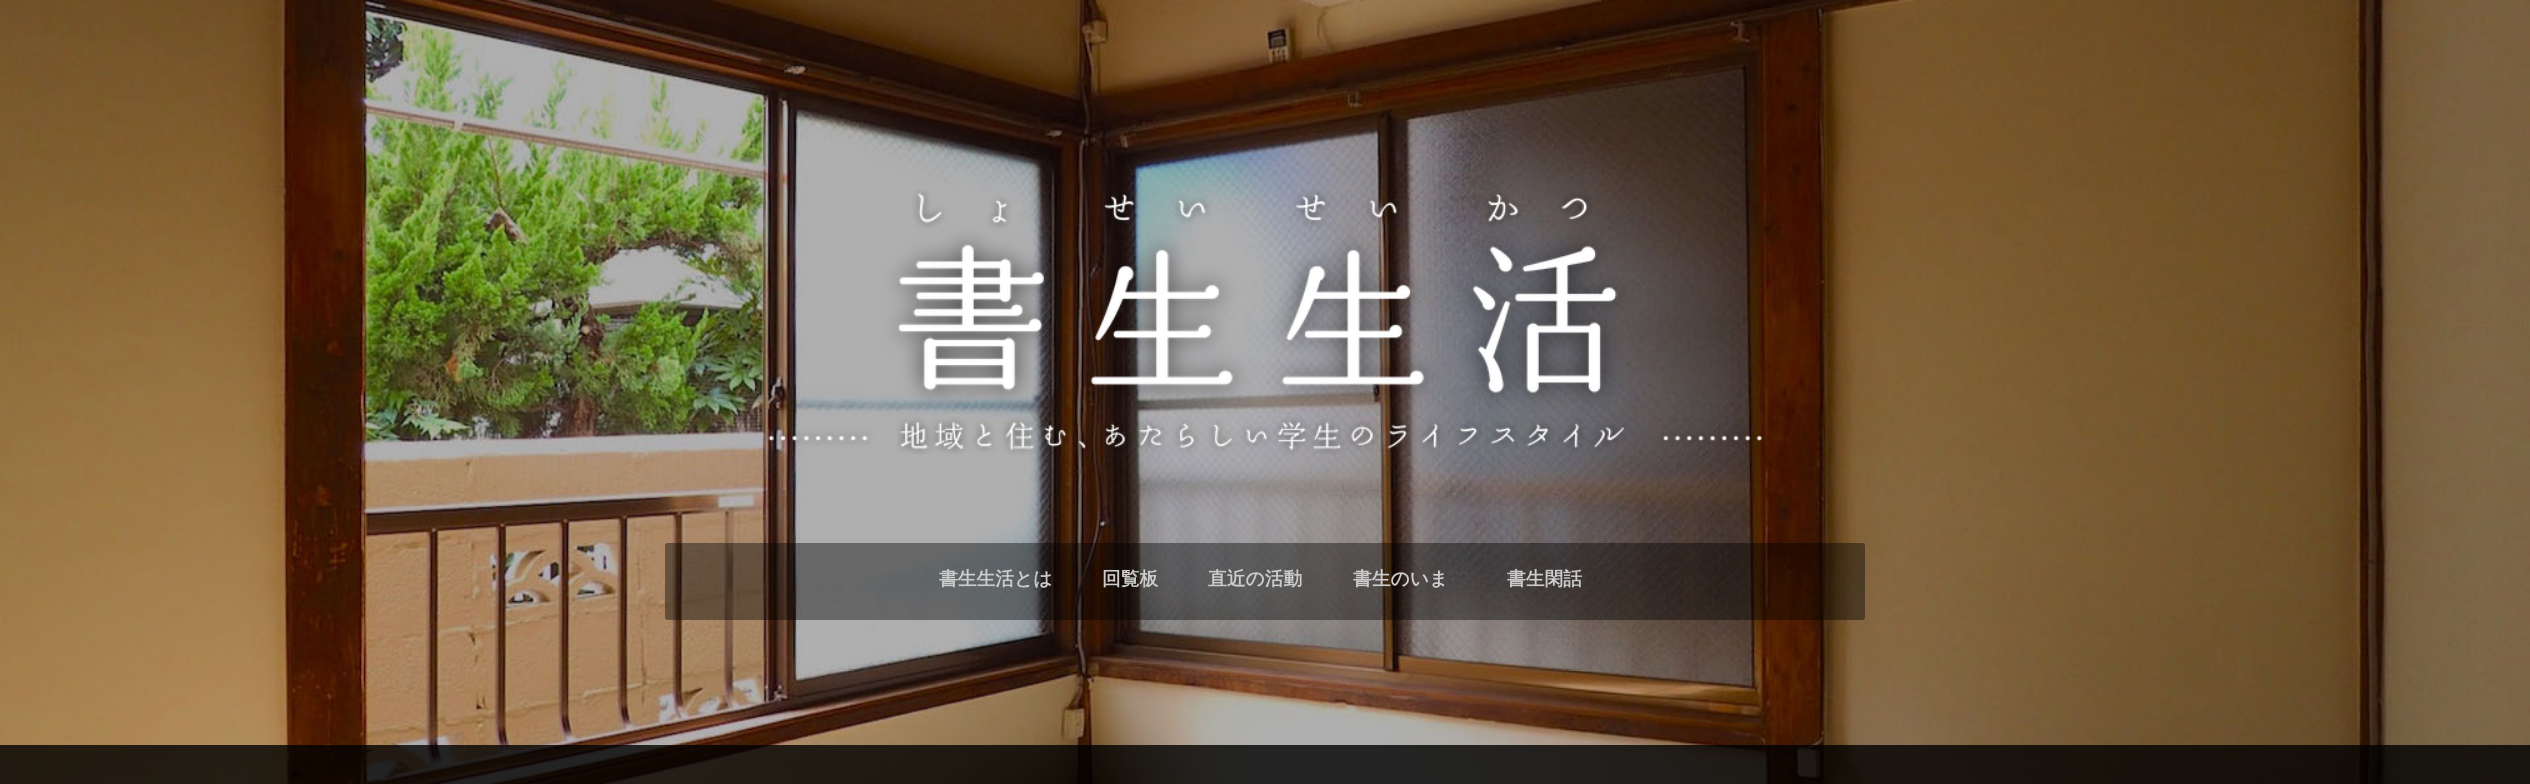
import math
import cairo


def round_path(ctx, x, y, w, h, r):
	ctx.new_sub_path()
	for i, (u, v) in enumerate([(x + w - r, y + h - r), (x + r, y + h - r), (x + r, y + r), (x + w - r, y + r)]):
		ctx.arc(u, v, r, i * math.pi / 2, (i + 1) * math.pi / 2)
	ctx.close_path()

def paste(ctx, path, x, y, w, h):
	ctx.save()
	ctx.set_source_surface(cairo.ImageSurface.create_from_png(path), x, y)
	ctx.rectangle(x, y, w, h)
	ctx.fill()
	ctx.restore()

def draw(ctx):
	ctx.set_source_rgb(1, 1, 1)
	ctx.paint()
	paste(ctx, 'media/1.png', 0, 0, 2530, 784)
	paste(ctx, 'media/2.png', 766, 189, 997, 266)
	ctx.set_source_rgba(0.004, 0.004, 0.004, 0.41)
	round_path(ctx, 665, 543, 1200, 77, 2.5)
	ctx.fill()
	ctx.select_font_face('WenQuanYi Zen Hei', cairo.FONT_SLANT_NORMAL, cairo.FONT_WEIGHT_BOLD)
	ctx.set_font_size(18.75)
	ctx.set_source_rgb(0.8, 0.8, 0.8)
	for x, y, s in [
		(939, 585, '書生生活とは'),
		(1102, 585, '回覧板'),
		(1208, 585, '直近の活動'),
		(1353, 585, '書生のいま'),
		(1507, 585, '書生閑話'),
	]:
		ctx.move_to(x, y)
		ctx.show_text(s)
	ctx.set_source_rgba(0, 0, 0, 0.8)
	ctx.rectangle(0, 745, 2530, 39)
	ctx.fill()


surface = cairo.ImageSurface(cairo.FORMAT_RGB24, 2530, 784)
ctx = cairo.Context(surface)
options = cairo.FontOptions()
options.set_hint_metrics(cairo.HINT_METRICS_OFF)
options.set_hint_style(cairo.HINT_STYLE_NONE)
ctx.set_font_options(options)
ctx.set_miter_limit(4)
draw(ctx)
surface.write_to_png('image.png')
